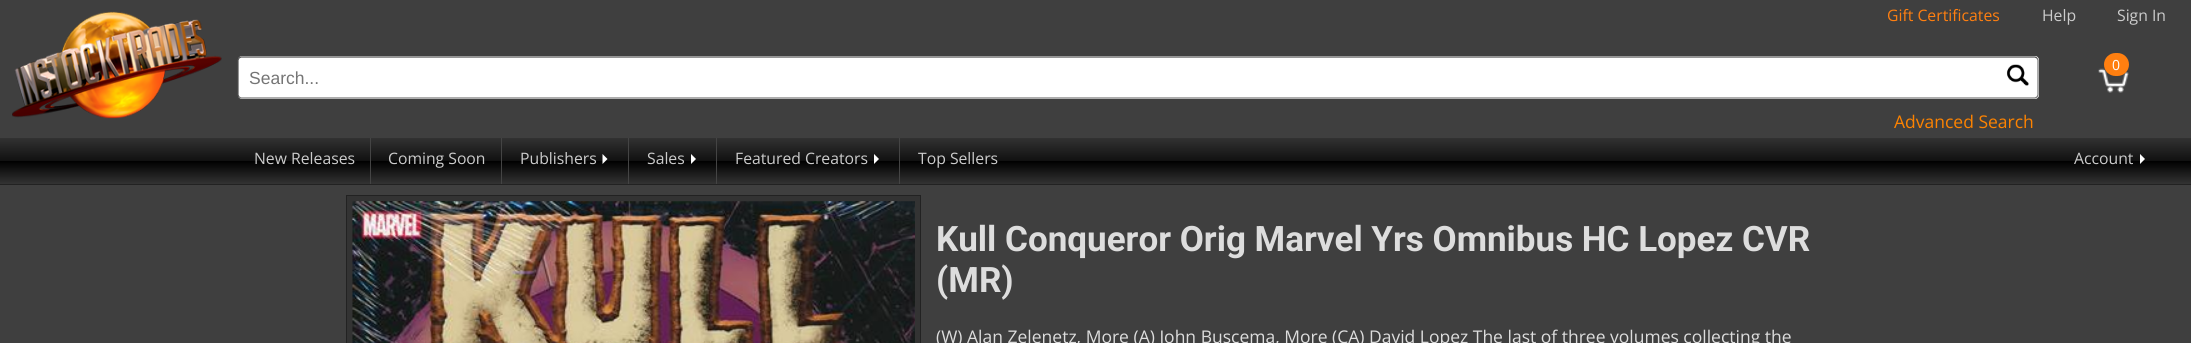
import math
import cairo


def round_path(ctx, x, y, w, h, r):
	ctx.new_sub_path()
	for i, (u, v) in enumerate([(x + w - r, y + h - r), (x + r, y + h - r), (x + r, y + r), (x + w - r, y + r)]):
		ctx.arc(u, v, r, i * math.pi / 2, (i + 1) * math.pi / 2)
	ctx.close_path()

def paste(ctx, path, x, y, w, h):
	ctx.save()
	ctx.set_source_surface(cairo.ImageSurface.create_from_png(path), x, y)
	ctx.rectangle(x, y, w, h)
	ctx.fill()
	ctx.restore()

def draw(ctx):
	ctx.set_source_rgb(0.247, 0.247, 0.247)
	ctx.paint()
	paste(ctx, 'media/1.png', 12, 11, 210, 108)
	ctx.select_font_face('Open Sans')
	ctx.set_font_size(15.75)
	ctx.set_source_rgb(1, 0.498, 0.063)
	ctx.move_to(1887, 21)
	ctx.show_text('Gift Certificates')
	ctx.set_source_rgb(0.8, 0.8, 0.8)
	ctx.move_to(2042, 21)
	ctx.show_text('Help')
	ctx.move_to(2117, 21)
	ctx.show_text('Sign In')
	paste(ctx, 'media/2.png', 2098, 68, 31, 25)
	ctx.set_source_rgb(1, 0.498, 0.063)
	round_path(ctx, 2104, 53, 25, 23, 11.5)
	ctx.fill()
	ctx.set_font_size(14)
	ctx.set_source_rgb(1, 1, 1)
	ctx.move_to(2112, 70)
	ctx.show_text('0')
	round_path(ctx, 238, 56, 1801, 43, 4)
	ctx.fill()
	ctx.new_path()
	ctx.move_to(2037, 58)
	ctx.line_to(2038, 60)
	ctx.line_to(2038, 95)
	ctx.line_to(2037, 97)
	ctx.line_to(2035, 98)
	ctx.line_to(241, 98)
	ctx.line_to(239, 97)
	ctx.set_source_rgb(0.463, 0.463, 0.463)
	ctx.set_line_width(1.2)
	ctx.stroke()
	ctx.new_path()
	ctx.move_to(239, 97)
	ctx.line_to(238, 95)
	ctx.line_to(238, 60)
	ctx.line_to(239, 58)
	ctx.line_to(241, 57)
	ctx.line_to(2035, 57)
	ctx.line_to(2037, 58)
	ctx.set_source_rgb(0.31, 0.31, 0.31)
	ctx.stroke()
	ctx.select_font_face('Liberation Sans')
	ctx.set_font_size(17.5)
	ctx.set_source_rgb(0.459, 0.459, 0.459)
	ctx.move_to(249, 84)
	ctx.show_text('Search...')
	paste(ctx, 'media/3.png', 2006, 64, 23, 22)
	ctx.select_font_face('Open Sans')
	ctx.set_source_rgb(0.996, 0.514, 0)
	ctx.move_to(1894, 128)
	ctx.show_text('Advanced Search')
	gradient = cairo.LinearGradient(1096, 137, 1096, 184)
	gradient.add_color_stop_rgba(0, 0.2, 0.2, 0.2, 1)
	gradient.add_color_stop_rgba(0.5, 0.067, 0.067, 0.067, 1)
	gradient.add_color_stop_rgba(0.51, 0, 0, 0, 1)
	gradient.add_color_stop_rgba(1, 0.2, 0.2, 0.2, 1)
	ctx.set_source(gradient)
	ctx.rectangle(0, 138, 2191, 46)
	ctx.fill()
	ctx.set_source_rgb(0.133, 0.133, 0.133)
	ctx.rectangle(0, 184, 2191, 1)
	ctx.fill()
	ctx.set_source_rgb(0.267, 0.267, 0.267)
	ctx.rectangle(370, 138, 1, 46)
	ctx.fill()
	ctx.set_font_size(15.75)
	ctx.set_source_rgb(0.8, 0.8, 0.8)
	ctx.move_to(254, 164)
	ctx.show_text('New Releases')
	ctx.set_source_rgb(0.267, 0.267, 0.267)
	ctx.rectangle(501, 138, 1, 46)
	ctx.fill()
	ctx.set_source_rgb(0.8, 0.8, 0.8)
	ctx.move_to(388, 164)
	ctx.show_text('Coming Soon')
	ctx.set_source_rgb(0.267, 0.267, 0.267)
	ctx.rectangle(628, 138, 1, 46)
	ctx.fill()
	ctx.set_source_rgb(0.8, 0.8, 0.8)
	ctx.move_to(520, 164)
	ctx.show_text('Publishers')
	ctx.set_source_rgb(1, 1, 1)
	ctx.new_path()
	ctx.move_to(602.5, 164)
	ctx.line_to(602.5, 154)
	ctx.line_to(607.5, 159)
	ctx.close_path()
	ctx.fill()
	ctx.set_source_rgb(0.267, 0.267, 0.267)
	ctx.rectangle(716, 138, 1, 46)
	ctx.fill()
	ctx.set_source_rgb(0.8, 0.8, 0.8)
	ctx.move_to(647, 164)
	ctx.show_text('Sales')
	ctx.set_source_rgb(1, 1, 1)
	ctx.new_path()
	ctx.move_to(691, 164)
	ctx.line_to(691, 154)
	ctx.line_to(696, 159)
	ctx.close_path()
	ctx.fill()
	ctx.set_source_rgb(0.267, 0.267, 0.267)
	ctx.rectangle(899, 138, 1, 46)
	ctx.fill()
	ctx.set_source_rgb(0.8, 0.8, 0.8)
	ctx.move_to(735, 164)
	ctx.show_text('Featured Creators')
	ctx.set_source_rgb(1, 1, 1)
	ctx.new_path()
	ctx.move_to(874, 164)
	ctx.line_to(874, 154)
	ctx.line_to(879, 159)
	ctx.close_path()
	ctx.fill()
	ctx.set_source_rgb(0.8, 0.8, 0.8)
	ctx.move_to(918, 164)
	ctx.show_text('Top Sellers')
	ctx.move_to(2074, 164)
	ctx.show_text('Account')
	ctx.set_source_rgb(1, 1, 1)
	ctx.new_path()
	ctx.move_to(2140, 164)
	ctx.line_to(2140, 154)
	ctx.line_to(2145, 159)
	ctx.close_path()
	ctx.fill()
	ctx.set_source_rgb(0.2, 0.2, 0.2)
	ctx.rectangle(346.5, 195.5, 574, 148)
	ctx.fill_preserve()
	ctx.set_source_rgb(0.133, 0.133, 0.133)
	ctx.set_line_width(1)
	ctx.stroke()
	paste(ctx, 'media/4.png', 352, 201, 563, 142)
	ctx.select_font_face('Roboto', cairo.FONT_SLANT_NORMAL, cairo.FONT_WEIGHT_BOLD)
	ctx.set_font_size(35)
	ctx.set_source_rgb(0.867, 0.867, 0.867)
	ctx.move_to(936, 251)
	ctx.show_text('Kull Conqueror Orig Marvel Yrs Omnibus HC Lopez CVR')
	ctx.move_to(936, 292)
	ctx.show_text('(MR)')
	ctx.select_font_face('Open Sans')
	ctx.set_font_size(17.5)
	ctx.move_to(936, 343)
	ctx.show_text('(W) Alan Zelenetz, More (A) John Buscema, More (CA) David Lopez The last of three volumes collecting the')


surface = cairo.ImageSurface(cairo.FORMAT_RGB24, 2191, 343)
ctx = cairo.Context(surface)
options = cairo.FontOptions()
options.set_hint_metrics(cairo.HINT_METRICS_OFF)
options.set_hint_style(cairo.HINT_STYLE_NONE)
ctx.set_font_options(options)
ctx.set_miter_limit(4)
draw(ctx)
surface.write_to_png('image.png')
